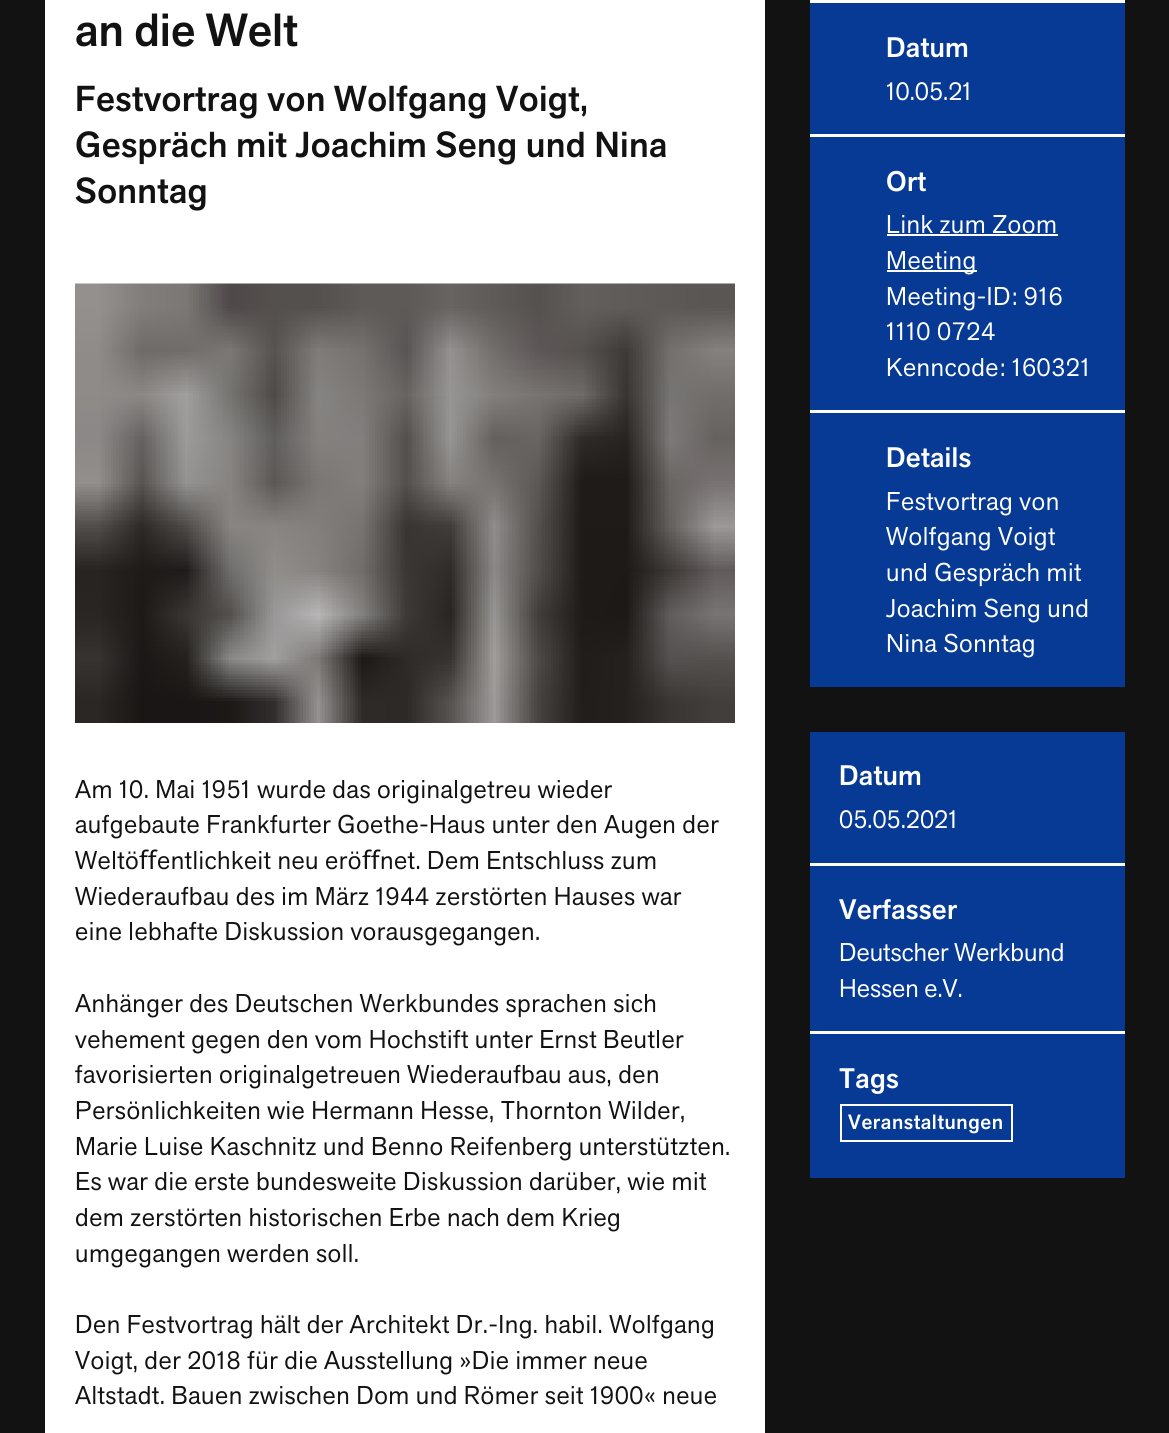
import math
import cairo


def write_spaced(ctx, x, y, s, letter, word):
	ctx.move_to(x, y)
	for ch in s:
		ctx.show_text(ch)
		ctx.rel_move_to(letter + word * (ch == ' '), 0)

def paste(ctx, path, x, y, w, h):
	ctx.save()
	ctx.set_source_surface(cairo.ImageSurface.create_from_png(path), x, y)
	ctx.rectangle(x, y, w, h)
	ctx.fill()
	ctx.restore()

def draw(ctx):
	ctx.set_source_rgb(0.071, 0.071, 0.071)
	ctx.paint()
	ctx.set_source_rgb(1, 1, 1)
	ctx.rectangle(45, 0, 720, 1433)
	ctx.fill()
	ctx.select_font_face('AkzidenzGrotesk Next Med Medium')
	ctx.set_font_size(46)
	ctx.set_source_rgb(0.071, 0.071, 0.071)
	ctx.move_to(75, 46)
	ctx.show_text('an die Welt')
	ctx.set_font_size(35.75)
	for x, y, s in [
		(75, 111, 'Festvortrag von Wolfgang Voigt,'),
		(75, 157, 'Gespräch mit Joachim Seng und Nina'),
		(75, 203, 'Sonntag'),
	]:
		write_spaced(ctx, x, y, s, 0.35, 0)
	paste(ctx, 'media/1.png', 75, 283, 660, 440)
	ctx.select_font_face('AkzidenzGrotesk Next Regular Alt')
	ctx.set_font_size(25.5)
	write_spaced(ctx, 75, 798, 'Am 10. Mai 1951 wurde das originalgetreu wieder', 0.5, 0)
	ctx.select_font_face('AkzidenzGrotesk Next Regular')
	write_spaced(ctx, 75, 833, 'aufgebaute Frankfurter Goethe-Haus unter den Augen der', 0.5, 0)
	write_spaced(ctx, 75, 869, 'Weltö', 0.5, 0)
	ctx.select_font_face('Noto Sans')
	write_spaced(ctx, 139, 869, 'ﬀ', 0.5, 0)
	ctx.select_font_face('AkzidenzGrotesk Next Regular')
	write_spaced(ctx, 157, 869, 'entlichkeit neu erö', 0.5, 0)
	ctx.select_font_face('Noto Sans')
	write_spaced(ctx, 362, 869, 'ﬀ', 0.5, 0)
	ctx.select_font_face('AkzidenzGrotesk Next Regular')
	write_spaced(ctx, 380, 869, 'net. Dem Entschluss zum', 0.5, 0)
	ctx.select_font_face('AkzidenzGrotesk Next Regular Alt')
	write_spaced(ctx, 75, 905, 'Wiederaufbau des im März 1944 zerstörten Hauses war', 0.5, 0)
	ctx.select_font_face('AkzidenzGrotesk Next Regular')
	for x, y, s in [
		(75, 940, 'eine lebhafte Diskussion vorausgegangen.'),
		(75, 1012, 'Anhänger des Deutschen Werkbundes sprachen sich'),
		(75, 1048, 'vehement gegen den vom Hochstift unter Ernst Beutler'),
		(75, 1083, 'favorisierten originalgetreuen Wiederaufbau aus, den'),
		(75, 1119, 'Persönlichkeiten wie Hermann Hesse, Thornton Wilder,'),
		(75, 1155, 'Marie Luise Kaschnitz und Benno Reifenberg unterstützten.'),
		(75, 1190, 'Es war die erste bundesweite Diskussion darüber, wie mit'),
		(75, 1226, 'dem zerstörten historischen Erbe nach dem Krieg'),
		(75, 1262, 'umgegangen werden soll.'),
		(75, 1333, 'Den Festvortrag hält der Architekt Dr.-Ing. habil. Wolfgang'),
	]:
		write_spaced(ctx, x, y, s, 0.5, 0)
	ctx.select_font_face('AkzidenzGrotesk Next Regular Alt')
	write_spaced(ctx, 75, 1369, 'Voigt, der 2018 für die Ausstellung »Die immer neue', 0.5, 0)
	write_spaced(ctx, 75, 1404, 'Altstadt. Bauen zwischen Dom und Römer seit 1900« neue', 0.5, 0)
	ctx.set_source_rgb(0.024, 0.227, 0.584)
	ctx.rectangle(810, 3, 315, 684)
	ctx.fill()
	ctx.set_source_rgb(1, 1, 1)
	ctx.rectangle(810, 0, 315, 3)
	ctx.fill()
	ctx.select_font_face('AkzidenzGrotesk Next Med Medium')
	ctx.set_font_size(28)
	write_spaced(ctx, 886, 57, 'Datum', 0.25, 0)
	ctx.rectangle(810, 134, 315, 3)
	ctx.fill()
	ctx.select_font_face('AkzidenzGrotesk Next Regular Alt')
	ctx.set_font_size(25.5)
	ctx.move_to(886, 100)
	ctx.show_text('10.05.21')
	ctx.select_font_face('AkzidenzGrotesk Next Med Medium')
	ctx.set_font_size(28)
	write_spaced(ctx, 886, 191, 'Ort', 0.25, 0)
	ctx.rectangle(810, 410, 315, 3)
	ctx.fill()
	ctx.select_font_face('AkzidenzGrotesk Next Regular')
	ctx.set_font_size(25.5)
	write_spaced(ctx, 886, 233, 'Link zum Zoom', 0.5, 0)
	ctx.rectangle(887, 234, 171, 2)
	ctx.fill()
	ctx.rectangle(887, 270, 90, 2)
	ctx.fill()
	write_spaced(ctx, 886, 269, 'Meeting', 0.5, 0)
	ctx.select_font_face('AkzidenzGrotesk Next Regular Alt')
	for x, y, s in [
		(886, 305, 'Meeting-ID: 916'),
		(886, 340, '1110 0724'),
		(886, 376, 'Kenncode: 160321'),
	]:
		write_spaced(ctx, x, y, s, 0.5, 0)
	ctx.select_font_face('AkzidenzGrotesk Next Med Medium')
	ctx.set_font_size(28)
	write_spaced(ctx, 886, 467, 'Details', 0.25, 0)
	ctx.select_font_face('AkzidenzGrotesk Next Regular')
	ctx.set_font_size(25.5)
	for x, y, s in [
		(886, 510, 'Festvortrag von'),
		(886, 545, 'Wolfgang Voigt'),
		(886, 581, 'und Gespräch mit'),
		(886, 617, 'Joachim Seng und'),
		(886, 652, 'Nina Sonntag'),
	]:
		write_spaced(ctx, x, y, s, 0.5, 0)
	ctx.set_source_rgb(0.024, 0.227, 0.584)
	ctx.rectangle(810, 732, 315, 446)
	ctx.fill()
	ctx.select_font_face('AkzidenzGrotesk Next Med Medium')
	ctx.set_font_size(28)
	ctx.set_source_rgb(1, 1, 1)
	write_spaced(ctx, 839, 785, 'Datum', 0.25, 0)
	ctx.rectangle(810, 863, 315, 3)
	ctx.fill()
	ctx.select_font_face('AkzidenzGrotesk Next Regular Alt')
	ctx.set_font_size(25.5)
	ctx.move_to(839, 828)
	ctx.show_text('05.05.2021')
	ctx.select_font_face('AkzidenzGrotesk Next Med Medium')
	ctx.set_font_size(28)
	write_spaced(ctx, 839, 919, 'Verfasser', 0.25, 0)
	ctx.rectangle(810, 1031, 315, 3)
	ctx.fill()
	ctx.select_font_face('AkzidenzGrotesk Next Regular')
	ctx.set_font_size(25.5)
	ctx.move_to(839, 961)
	ctx.show_text('Deutscher Werkbund')
	ctx.move_to(839, 997)
	ctx.show_text('Hessen e.V.')
	ctx.select_font_face('AkzidenzGrotesk Next Med Medium')
	ctx.set_font_size(28)
	write_spaced(ctx, 839, 1088, 'Tags', 0.25, 0)
	ctx.rectangle(841, 1105, 171, 36)
	ctx.stroke()
	ctx.set_font_size(20.5)
	write_spaced(ctx, 848, 1129, 'Veranstaltungen', 0.6, 0)


surface = cairo.ImageSurface(cairo.FORMAT_RGB24, 1169, 1433)
ctx = cairo.Context(surface)
options = cairo.FontOptions()
options.set_hint_metrics(cairo.HINT_METRICS_OFF)
options.set_hint_style(cairo.HINT_STYLE_NONE)
ctx.set_font_options(options)
ctx.set_miter_limit(4)
draw(ctx)
surface.write_to_png('image.png')
